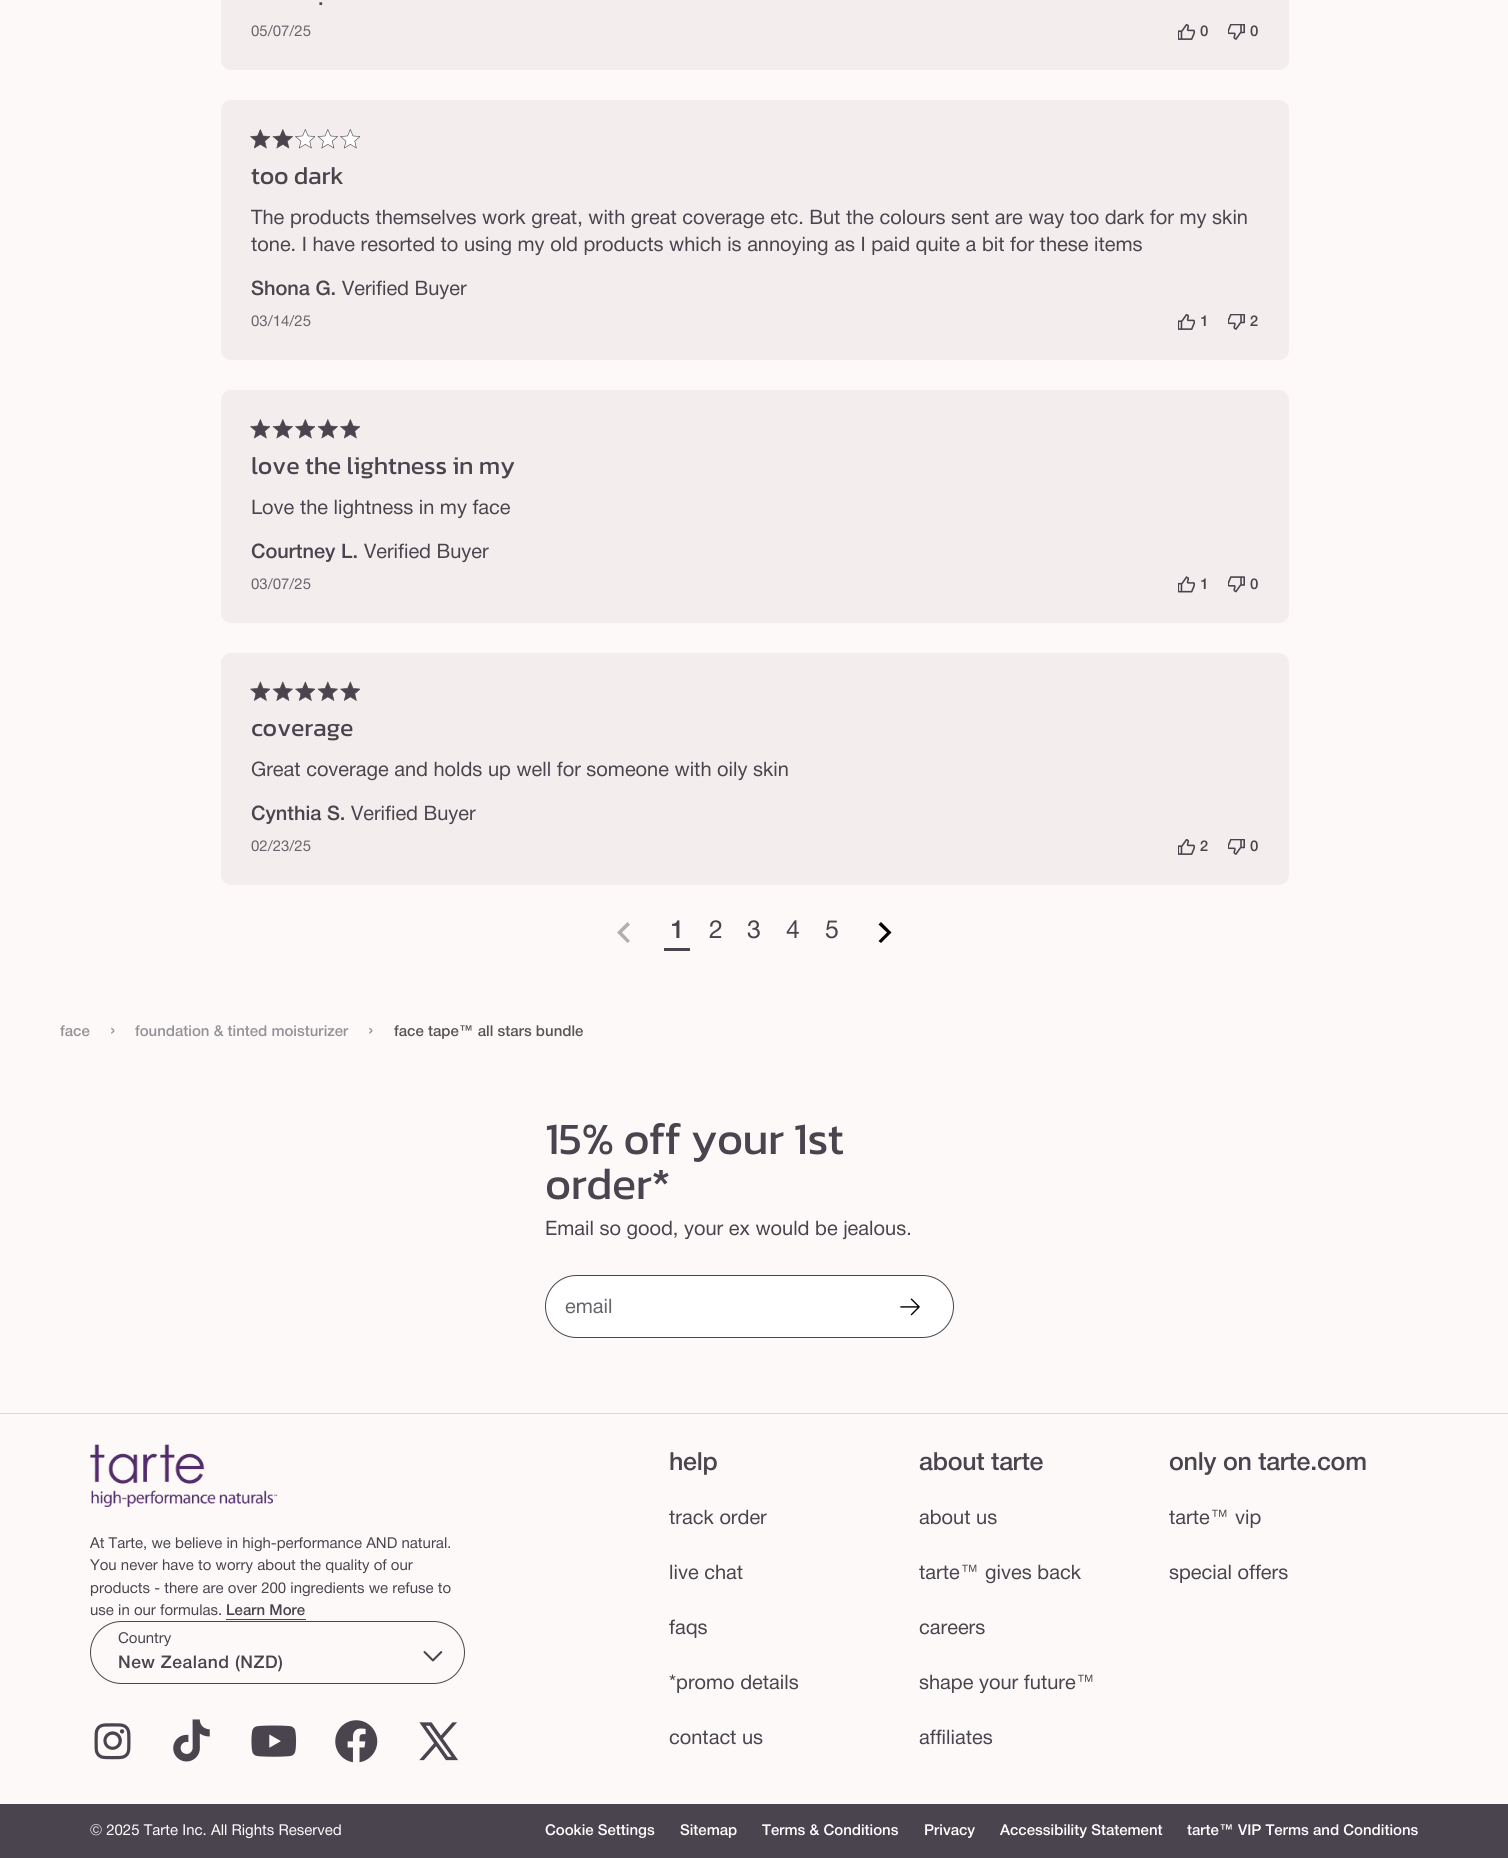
import math
import cairo


def write_spaced(ctx, x, y, s, letter, word):
	ctx.move_to(x, y)
	for ch in s:
		ctx.show_text(ch)
		ctx.rel_move_to(letter + word * (ch == ' '), 0)

def round_path(ctx, x, y, w, h, r):
	ctx.new_sub_path()
	for i, (u, v) in enumerate([(x + w - r, y + h - r), (x + r, y + h - r), (x + r, y + r), (x + w - r, y + r)]):
		ctx.arc(u, v, r, i * math.pi / 2, (i + 1) * math.pi / 2)
	ctx.close_path()

def paste(ctx, path, x, y, w, h):
	ctx.save()
	ctx.set_source_surface(cairo.ImageSurface.create_from_png(path), x, y)
	ctx.rectangle(x, y, w, h)
	ctx.fill()
	ctx.restore()

def draw(ctx):
	ctx.set_source_rgb(0.992, 0.976, 0.976)
	ctx.paint()
	ctx.set_source_rgb(0.953, 0.933, 0.929)
	ctx.rectangle(221, 0, 1068, 25)
	ctx.fill()
	ctx.select_font_face('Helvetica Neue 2 Medium')
	ctx.set_font_size(20)
	ctx.set_source_rgb(0.29, 0.267, 0.306)
	ctx.move_to(318, 5)
	ctx.show_text('.')
	ctx.set_source_rgb(0.953, 0.933, 0.929)
	ctx.new_path()
	ctx.move_to(221, 25)
	ctx.line_to(1289, 25)
	ctx.line_to(1289, 60)
	ctx.curve_to(1289, 65.5, 1284.5, 70, 1279, 70)
	ctx.line_to(231, 70)
	ctx.curve_to(225.5, 70, 221, 65.5, 221, 60)
	ctx.close_path()
	ctx.fill()
	ctx.select_font_face('Helvetica Neue 2')
	ctx.set_font_size(15)
	ctx.set_source_rgb(0.412, 0.392, 0.424)
	ctx.move_to(251, 36)
	ctx.show_text('05/07/25')
	paste(ctx, 'media/1.png', 1178, 24, 17, 16)
	ctx.select_font_face('Helvetica Neue 2 Medium')
	ctx.set_source_rgb(0.29, 0.267, 0.306)
	ctx.move_to(1200, 36)
	ctx.show_text('0')
	paste(ctx, 'media/2.png', 1228, 24, 17, 16)
	ctx.move_to(1250, 36)
	ctx.show_text('0')
	ctx.set_source_rgb(0.953, 0.933, 0.929)
	ctx.new_path()
	ctx.move_to(221, 315)
	ctx.line_to(1289, 315)
	ctx.line_to(1289, 350)
	ctx.curve_to(1289, 355.5, 1284.5, 360, 1279, 360)
	ctx.line_to(231, 360)
	ctx.curve_to(225.5, 360, 221, 355.5, 221, 350)
	ctx.close_path()
	ctx.fill()
	ctx.new_path()
	ctx.move_to(231, 100)
	ctx.line_to(1279, 100)
	ctx.curve_to(1284.5, 100, 1289, 104.5, 1289, 110)
	ctx.line_to(1289, 330)
	ctx.line_to(221, 330)
	ctx.line_to(221, 110)
	ctx.curve_to(221, 104.5, 225.5, 100, 231, 100)
	ctx.close_path()
	ctx.fill()
	paste(ctx, 'media/3.png', 250, 129, 20, 20)
	paste(ctx, 'media/4.png', 272, 129, 21, 20)
	paste(ctx, 'media/5.png', 295, 129, 20, 20)
	paste(ctx, 'media/6.png', 317, 129, 21, 20)
	paste(ctx, 'media/5.png', 340, 129, 20, 20)
	ctx.select_font_face('Kanit')
	ctx.set_font_size(25)
	ctx.set_source_rgb(0.29, 0.267, 0.306)
	write_spaced(ctx, 251, 184, 'too dark', -0.25, 0)
	ctx.select_font_face('Helvetica Neue 2')
	ctx.set_font_size(20)
	ctx.move_to(251, 224)
	ctx.show_text('The products themselves work great, with great coverage etc. But the colours sent are way too dark for my skin')
	ctx.move_to(251, 251)
	ctx.show_text('tone. I have resorted to using my old products which is annoying as I paid quite a bit for these items')
	ctx.select_font_face('Helvetica Neue 2 Medium')
	ctx.move_to(251, 295)
	ctx.show_text('Shona G.')
	ctx.select_font_face('Helvetica Neue 2')
	ctx.move_to(342, 295)
	ctx.show_text('Verified Buyer')
	ctx.set_font_size(15)
	ctx.set_source_rgb(0.412, 0.392, 0.424)
	ctx.move_to(251, 326)
	ctx.show_text('03/14/25')
	paste(ctx, 'media/1.png', 1178, 314, 17, 16)
	ctx.select_font_face('Helvetica Neue 2 Medium')
	ctx.set_source_rgb(0.29, 0.267, 0.306)
	ctx.move_to(1200, 326)
	ctx.show_text('1')
	paste(ctx, 'media/2.png', 1228, 314, 17, 16)
	ctx.move_to(1250, 326)
	ctx.show_text('2')
	ctx.set_source_rgb(0.953, 0.933, 0.929)
	ctx.new_path()
	ctx.move_to(221, 578)
	ctx.line_to(1289, 578)
	ctx.line_to(1289, 613)
	ctx.curve_to(1289, 618.5, 1284.5, 623, 1279, 623)
	ctx.line_to(231, 623)
	ctx.curve_to(225.5, 623, 221, 618.5, 221, 613)
	ctx.close_path()
	ctx.fill()
	ctx.new_path()
	ctx.move_to(231, 390)
	ctx.line_to(1279, 390)
	ctx.curve_to(1284.5, 390, 1289, 394.5, 1289, 400)
	ctx.line_to(1289, 593)
	ctx.line_to(221, 593)
	ctx.line_to(221, 400)
	ctx.curve_to(221, 394.5, 225.5, 390, 231, 390)
	ctx.close_path()
	ctx.fill()
	paste(ctx, 'media/3.png', 250, 419, 20, 20)
	paste(ctx, 'media/4.png', 272, 419, 21, 20)
	paste(ctx, 'media/3.png', 295, 419, 20, 20)
	paste(ctx, 'media/4.png', 317, 419, 21, 20)
	paste(ctx, 'media/3.png', 340, 419, 20, 20)
	ctx.select_font_face('Kanit')
	ctx.set_font_size(25)
	ctx.set_source_rgb(0.29, 0.267, 0.306)
	write_spaced(ctx, 251, 474, 'love the lightness in my', -0.25, 0)
	ctx.select_font_face('Helvetica Neue 2')
	ctx.set_font_size(20)
	ctx.move_to(251, 514)
	ctx.show_text('Love the lightness in my face')
	ctx.select_font_face('Helvetica Neue 2 Medium')
	ctx.move_to(251, 558)
	ctx.show_text('Courtney L.')
	ctx.select_font_face('Helvetica Neue 2')
	ctx.move_to(364, 558)
	ctx.show_text('Verified Buyer')
	ctx.set_font_size(15)
	ctx.set_source_rgb(0.412, 0.392, 0.424)
	ctx.move_to(251, 589)
	ctx.show_text('03/07/25')
	paste(ctx, 'media/7.png', 1178, 576, 17, 17)
	ctx.select_font_face('Helvetica Neue 2 Medium')
	ctx.set_source_rgb(0.29, 0.267, 0.306)
	ctx.move_to(1200, 589)
	ctx.show_text('1')
	paste(ctx, 'media/8.png', 1228, 576, 17, 17)
	ctx.move_to(1250, 589)
	ctx.show_text('0')
	ctx.set_source_rgb(0.953, 0.933, 0.929)
	ctx.new_path()
	ctx.move_to(221, 840)
	ctx.line_to(1289, 840)
	ctx.line_to(1289, 875)
	ctx.curve_to(1289, 880.5, 1284.5, 885, 1279, 885)
	ctx.line_to(231, 885)
	ctx.curve_to(225.5, 885, 221, 880.5, 221, 875)
	ctx.close_path()
	ctx.fill()
	ctx.new_path()
	ctx.move_to(231, 653)
	ctx.line_to(1279, 653)
	ctx.curve_to(1284.5, 653, 1289, 657.5, 1289, 663)
	ctx.line_to(1289, 855)
	ctx.line_to(221, 855)
	ctx.line_to(221, 663)
	ctx.curve_to(221, 657.5, 225.5, 653, 231, 653)
	ctx.close_path()
	ctx.fill()
	paste(ctx, 'media/9.png', 250, 681, 20, 20)
	paste(ctx, 'media/10.png', 272, 681, 21, 20)
	paste(ctx, 'media/9.png', 295, 681, 20, 20)
	paste(ctx, 'media/10.png', 317, 681, 21, 20)
	paste(ctx, 'media/9.png', 340, 681, 20, 20)
	ctx.select_font_face('Kanit')
	ctx.set_font_size(25)
	ctx.set_source_rgb(0.29, 0.267, 0.306)
	write_spaced(ctx, 251, 736, 'coverage', -0.25, 0)
	ctx.select_font_face('Helvetica Neue 2')
	ctx.set_font_size(20)
	ctx.move_to(251, 776)
	ctx.show_text('Great coverage and holds up well for someone with oily skin')
	ctx.select_font_face('Helvetica Neue 2 Medium')
	ctx.move_to(251, 820)
	ctx.show_text('Cynthia S.')
	ctx.select_font_face('Helvetica Neue 2')
	ctx.move_to(351, 820)
	ctx.show_text('Verified Buyer')
	ctx.set_font_size(15)
	ctx.set_source_rgb(0.412, 0.392, 0.424)
	ctx.move_to(251, 851)
	ctx.show_text('02/23/25')
	paste(ctx, 'media/1.png', 1178, 839, 17, 16)
	ctx.select_font_face('Helvetica Neue 2 Medium')
	ctx.set_source_rgb(0.29, 0.267, 0.306)
	ctx.move_to(1200, 851)
	ctx.show_text('2')
	paste(ctx, 'media/2.png', 1228, 839, 17, 16)
	ctx.move_to(1250, 851)
	ctx.show_text('0')
	ctx.set_source_rgb(0.694, 0.682, 0.682)
	ctx.new_path()
	ctx.move_to(622, 932.5)
	ctx.line_to(630, 941)
	ctx.line_to(627.5, 943)
	ctx.line_to(617, 932.5)
	ctx.line_to(627.5, 922)
	ctx.line_to(630, 924.5)
	ctx.close_path()
	ctx.fill()
	ctx.set_source_rgb(0.29, 0.267, 0.306)
	ctx.rectangle(664, 948, 26, 3)
	ctx.fill()
	ctx.set_font_size(25)
	ctx.move_to(670, 938)
	ctx.show_text('1')
	ctx.select_font_face('Helvetica Neue 2')
	for x, y, s in [
		(709, 938, '2'),
		(747, 938, '3'),
		(786, 938, '4'),
		(825, 938, '5'),
	]:
		ctx.move_to(x, y)
		ctx.show_text(s)
	ctx.set_source_rgb(0, 0, 0)
	ctx.new_path()
	ctx.move_to(887, 932.5)
	ctx.line_to(878.5, 924.5)
	ctx.line_to(881, 922)
	ctx.line_to(891.5, 932.5)
	ctx.line_to(881, 943)
	ctx.line_to(878.5, 941)
	ctx.close_path()
	ctx.fill()
	ctx.select_font_face('Helvetica Neue Medium')
	ctx.set_font_size(15)
	ctx.set_source_rgb(0.58, 0.569, 0.592)
	ctx.move_to(60, 1036)
	ctx.show_text('face')
	ctx.select_font_face('Helvetica Neue')
	ctx.set_font_size(20)
	ctx.move_to(110, 1036)
	ctx.show_text('›')
	ctx.select_font_face('Helvetica Neue Medium')
	ctx.set_font_size(15)
	ctx.move_to(135, 1036)
	ctx.show_text('foundation & tinted moisturizer')
	ctx.select_font_face('Helvetica Neue')
	ctx.set_font_size(20)
	ctx.move_to(368, 1036)
	ctx.show_text('›')
	ctx.select_font_face('Helvetica Neue Medium')
	ctx.set_font_size(15)
	ctx.set_source_rgb(0.333, 0.333, 0.333)
	ctx.move_to(394, 1036)
	ctx.show_text('face tape™ all stars bundle')
	ctx.set_source_rgb(0.855, 0.843, 0.855)
	ctx.rectangle(0, 1413, 1508, 1)
	ctx.fill()
	ctx.select_font_face('Kanit')
	ctx.set_font_size(45)
	ctx.set_source_rgb(0.29, 0.267, 0.306)
	write_spaced(ctx, 545, 1154, '15% off your 1st', -0.5, 0)
	write_spaced(ctx, 545, 1199, 'order*', -0.5, 0)
	ctx.select_font_face('Helvetica Neue')
	ctx.set_font_size(20)
	ctx.move_to(545, 1235)
	ctx.show_text('Email so good, your ex would be jealous.')
	ctx.set_source_rgb(1, 1, 1)
	round_path(ctx, 545.5, 1275.5, 408, 62, 31)
	ctx.fill_preserve()
	ctx.set_source_rgb(0.29, 0.267, 0.306)
	ctx.set_line_width(1)
	ctx.stroke()
	ctx.set_source_rgb(0.412, 0.392, 0.424)
	ctx.move_to(565, 1313)
	ctx.show_text('email')
	paste(ctx, 'media/11.png', 900, 1298, 20, 18)
	paste(ctx, 'media/12.png', 90, 1444, 188, 63)
	ctx.set_font_size(15)
	ctx.set_source_rgb(0.29, 0.267, 0.306)
	for x, y, s in [
		(90, 1548, 'At Tarte, we believe in high-performance AND natural.'),
		(90, 1570, 'You never have to worry about the quality of our'),
		(90, 1593, 'products - there are over 200 ingredients we refuse to'),
		(90, 1615, 'use in our formulas.'),
	]:
		ctx.move_to(x, y)
		ctx.show_text(s)
	ctx.select_font_face('Helvetica Neue Medium')
	ctx.move_to(226, 1615)
	ctx.show_text('Learn More')
	ctx.rectangle(226, 1619, 80, 1)
	ctx.fill()
	ctx.set_font_size(25)
	write_spaced(ctx, 669, 1470, 'help', -0.25, 0)
	ctx.select_font_face('Helvetica Neue')
	ctx.set_font_size(20)
	for x, y, s in [
		(669, 1524, 'track order'),
		(669, 1579, 'live chat'),
		(669, 1634, 'faqs'),
		(669, 1689, '*promo details'),
		(669, 1744, 'contact us'),
	]:
		ctx.move_to(x, y)
		ctx.show_text(s)
	ctx.select_font_face('Helvetica Neue Medium')
	ctx.set_font_size(25)
	write_spaced(ctx, 919, 1470, 'about tarte', -0.25, 0)
	ctx.select_font_face('Helvetica Neue')
	ctx.set_font_size(20)
	for x, y, s in [
		(919, 1524, 'about us'),
		(919, 1579, 'tarte™ gives back'),
		(919, 1634, 'careers'),
		(919, 1689, 'shape your future™'),
		(919, 1744, 'affiliates'),
	]:
		ctx.move_to(x, y)
		ctx.show_text(s)
	ctx.select_font_face('Helvetica Neue Medium')
	ctx.set_font_size(25)
	write_spaced(ctx, 1169, 1470, 'only on tarte.com', -0.25, 0)
	ctx.select_font_face('Helvetica Neue')
	ctx.set_font_size(20)
	ctx.move_to(1169, 1524)
	ctx.show_text('tarte™ vip')
	ctx.move_to(1169, 1579)
	ctx.show_text('special offers')
	ctx.set_font_size(15)
	ctx.move_to(118, 1643)
	ctx.show_text('Country')
	round_path(ctx, 90.5, 1621.5, 374, 62, 31)
	ctx.stroke()
	ctx.select_font_face('Helvetica Neue Medium')
	ctx.set_font_size(17.5)
	write_spaced(ctx, 118, 1668, 'New Zealand (NZD)', 0.5, 0)
	paste(ctx, 'media/13.png', 423, 1651, 20, 11)
	paste(ctx, 'media/14.png', 94, 1723, 37, 37)
	paste(ctx, 'media/15.png', 173, 1719, 37, 43)
	paste(ctx, 'media/16.png', 251, 1725, 46, 32)
	paste(ctx, 'media/17.png', 335, 1720, 43, 43)
	paste(ctx, 'media/18.png', 419, 1722, 39, 39)
	ctx.rectangle(0, 1804, 1508, 54)
	ctx.fill()
	ctx.select_font_face('Helvetica Neue')
	ctx.set_font_size(15)
	ctx.set_source_rgb(1, 1, 1)
	ctx.move_to(90, 1835)
	ctx.show_text('© 2025 Tarte Inc. All Rights Reserved')
	ctx.select_font_face('Helvetica Neue Medium')
	for x, y, s in [
		(545, 1835, 'Cookie Settings'),
		(680, 1835, 'Sitemap'),
		(762, 1835, 'Terms & Conditions'),
		(924, 1835, 'Privacy'),
		(1000, 1835, 'Accessibility Statement'),
		(1187, 1835, 'tarte™ VIP Terms and Conditions'),
	]:
		ctx.move_to(x, y)
		ctx.show_text(s)


surface = cairo.ImageSurface(cairo.FORMAT_RGB24, 1508, 1858)
ctx = cairo.Context(surface)
options = cairo.FontOptions()
options.set_hint_metrics(cairo.HINT_METRICS_OFF)
options.set_hint_style(cairo.HINT_STYLE_NONE)
ctx.set_font_options(options)
ctx.set_miter_limit(4)
draw(ctx)
surface.write_to_png('image.png')
